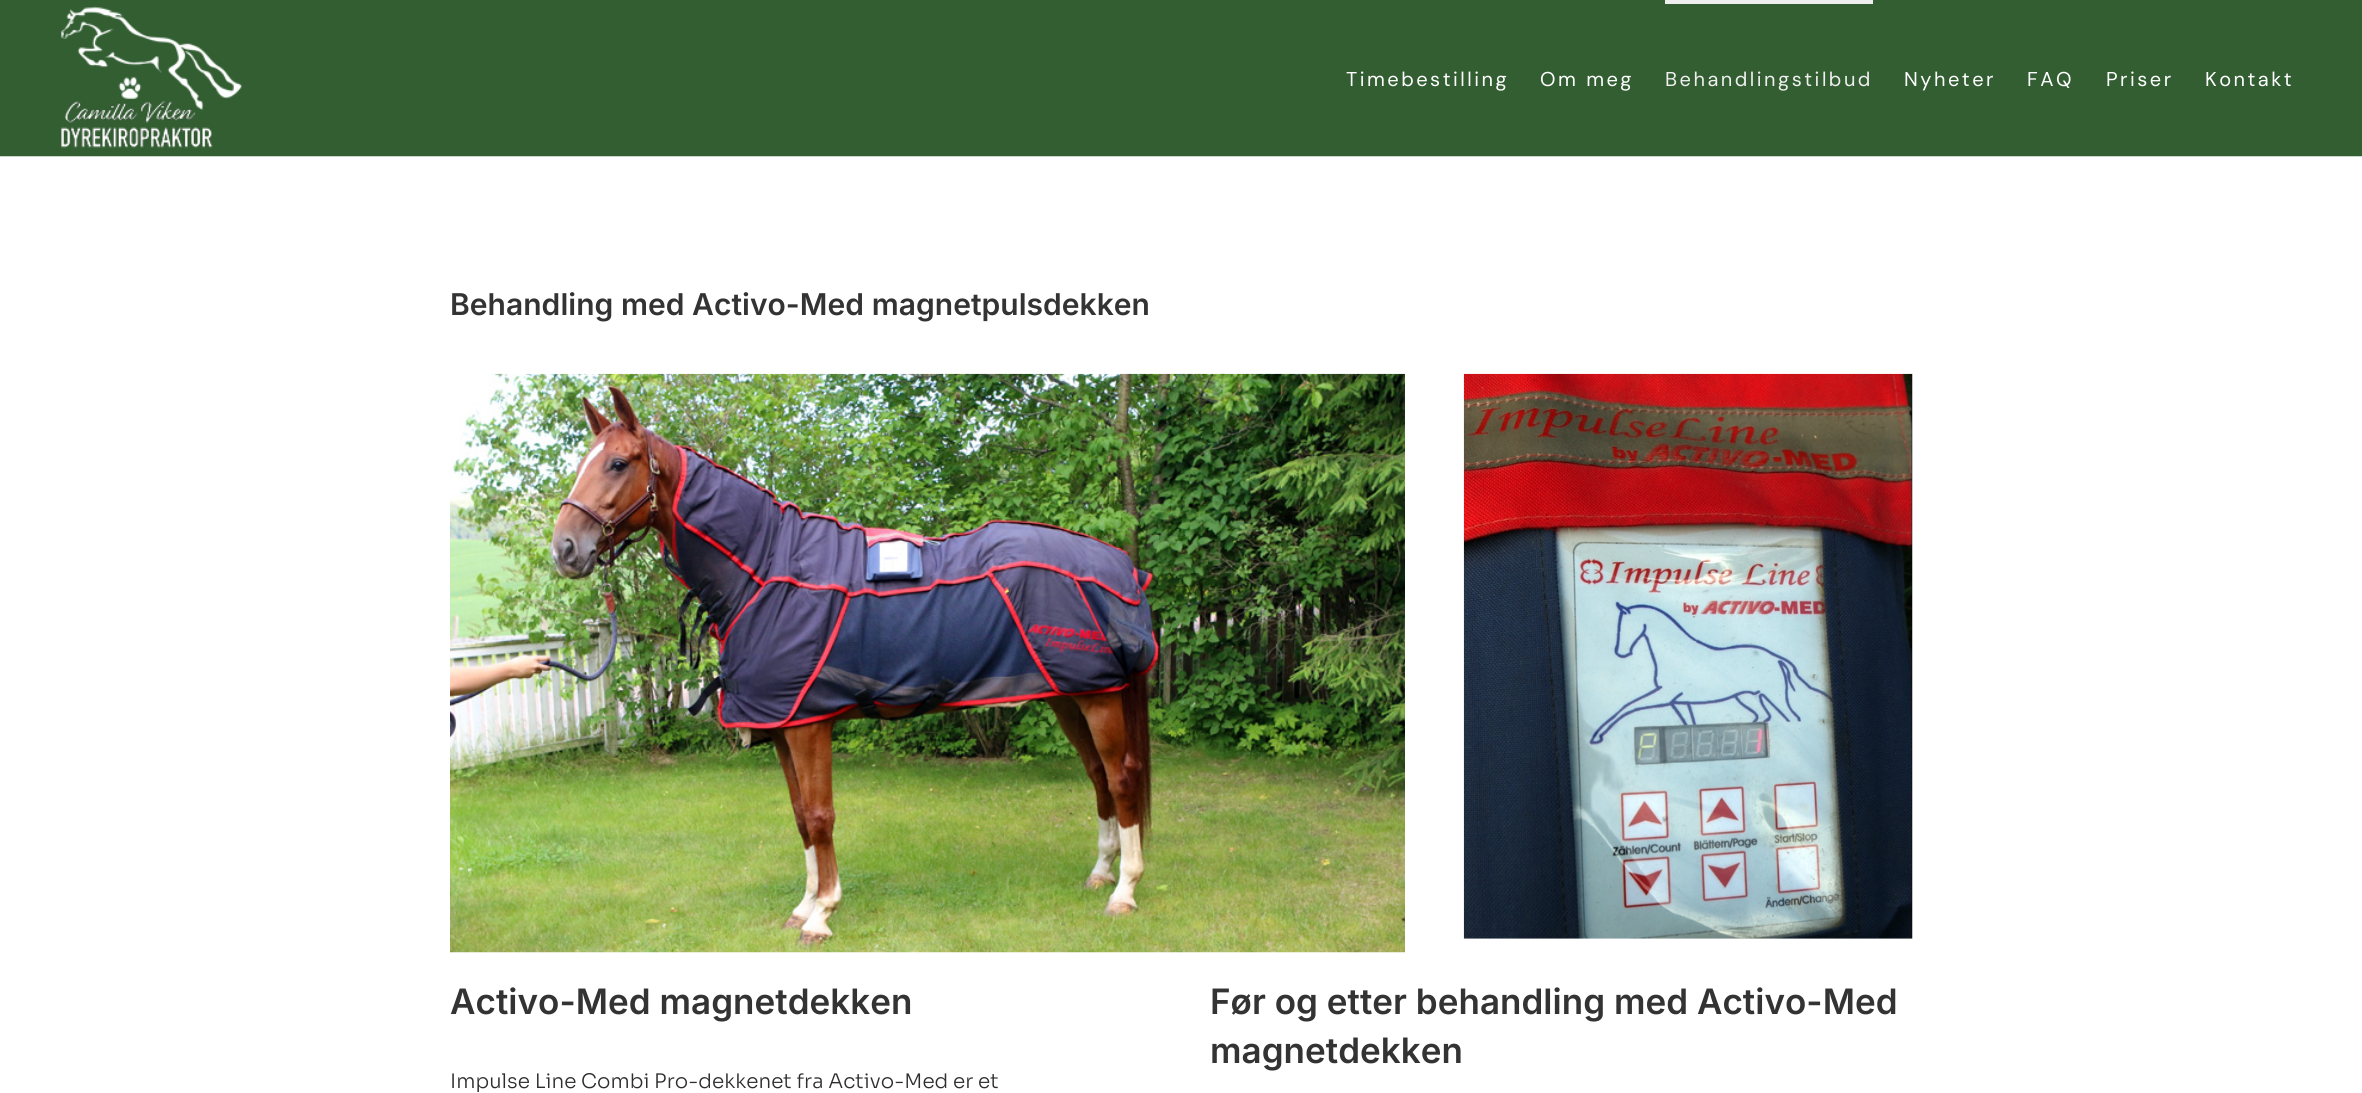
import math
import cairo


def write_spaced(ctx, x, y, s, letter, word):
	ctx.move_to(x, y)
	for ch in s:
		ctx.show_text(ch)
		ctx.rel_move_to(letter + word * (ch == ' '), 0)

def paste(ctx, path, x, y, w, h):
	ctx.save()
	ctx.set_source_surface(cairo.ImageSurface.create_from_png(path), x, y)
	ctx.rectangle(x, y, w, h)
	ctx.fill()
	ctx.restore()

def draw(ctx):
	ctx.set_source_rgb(1, 1, 1)
	ctx.paint()
	ctx.set_source_rgb(0.196, 0.369, 0.196)
	ctx.rectangle(0, 0, 2362, 156)
	ctx.fill()
	ctx.set_source_rgb(0.8, 0.843, 0.796)
	ctx.rectangle(0, 156, 2362, 1)
	ctx.fill()
	paste(ctx, 'media/1.png', 61, 6, 181, 142)
	ctx.select_font_face('DM Sans')
	ctx.set_font_size(20)
	ctx.set_source_rgb(1, 1, 1)
	write_spaced(ctx, 1346, 86, 'Timebestilling', 2.5, 0)
	write_spaced(ctx, 1540, 86, 'Om meg', 2.5, 0)
	ctx.set_source_rgb(0.937, 0.937, 0.937)
	ctx.rectangle(1665, 0, 208, 4)
	ctx.fill()
	write_spaced(ctx, 1665, 86, 'Behandlingstilbud', 2.5, 0)
	ctx.set_source_rgb(1, 1, 1)
	for x, y, s in [
		(1904, 86, 'Nyheter'),
		(2027, 86, 'FAQ'),
		(2106, 86, 'Priser'),
		(2205, 86, 'Kontakt'),
	]:
		write_spaced(ctx, x, y, s, 2.5, 0)
	ctx.select_font_face('Inter SemiBold')
	ctx.set_font_size(30)
	ctx.set_source_rgb(0.2, 0.2, 0.2)
	write_spaced(ctx, 450, 315, 'Behandling med Activo-Med magnetpulsdekken', 0.03, 0)
	paste(ctx, 'media/2.png', 450, 373, 955, 580)
	paste(ctx, 'media/3.png', 1463, 373, 450, 566)
	ctx.set_font_size(35)
	write_spaced(ctx, 450, 1014, 'Activo-Med magnetdekken', 0.03, 0)
	ctx.select_font_face('Sora Light')
	ctx.set_font_size(20)
	ctx.set_source_rgb(0.176, 0.176, 0.176)
	write_spaced(ctx, 450, 1088, 'Impulse Line Combi Pro-dekkenet fra Activo-Med er et', 0.03, 0)
	ctx.select_font_face('Inter SemiBold')
	ctx.set_font_size(35)
	ctx.set_source_rgb(0.2, 0.2, 0.2)
	write_spaced(ctx, 1210, 1014, 'Før og etter behandling med Activo-Med', 0.03, 0)
	write_spaced(ctx, 1210, 1063, 'magnetdekken', 0.03, 0)


surface = cairo.ImageSurface(cairo.FORMAT_RGB24, 2362, 1093)
ctx = cairo.Context(surface)
options = cairo.FontOptions()
options.set_hint_metrics(cairo.HINT_METRICS_OFF)
options.set_hint_style(cairo.HINT_STYLE_NONE)
ctx.set_font_options(options)
ctx.set_miter_limit(4)
draw(ctx)
surface.write_to_png('image.png')
